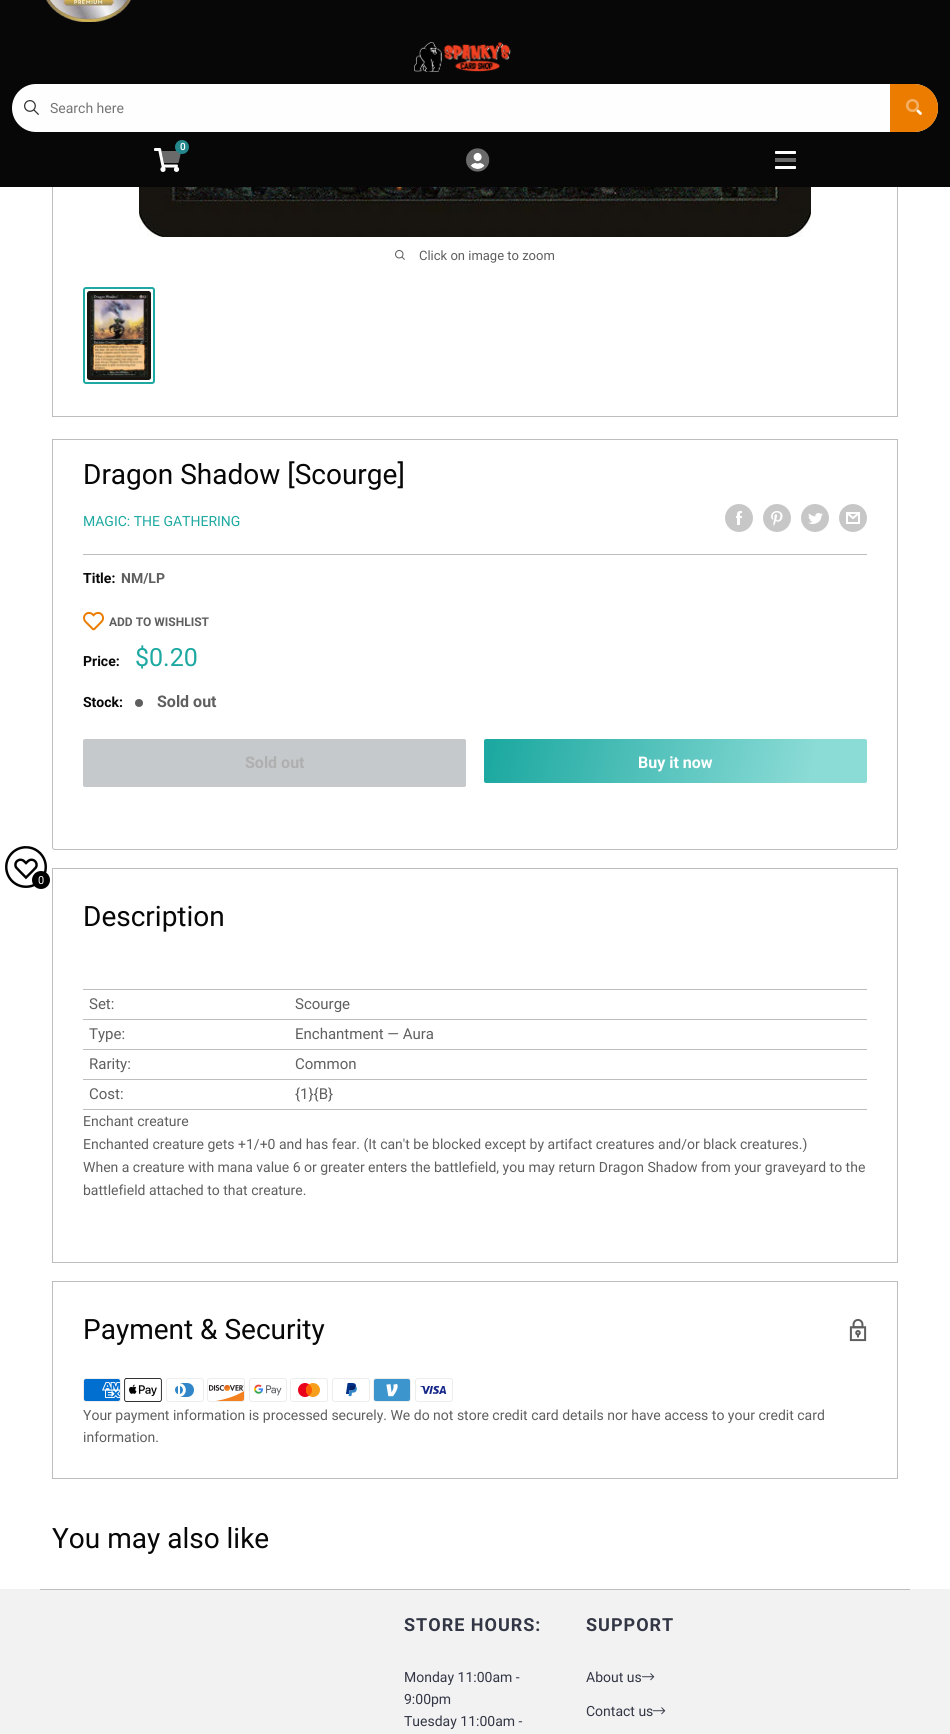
import math
import cairo


def write_spaced(ctx, x, y, s, letter, word):
	ctx.move_to(x, y)
	for ch in s:
		ctx.show_text(ch)
		ctx.rel_move_to(letter + word * (ch == ' '), 0)

def round_path(ctx, x, y, w, h, r):
	ctx.new_sub_path()
	for i, (u, v) in enumerate([(x + w - r, y + h - r), (x + r, y + h - r), (x + r, y + r), (x + w - r, y + r)]):
		ctx.arc(u, v, r, i * math.pi / 2, (i + 1) * math.pi / 2)
	ctx.close_path()

def paste(ctx, path, x, y, w, h):
	ctx.save()
	ctx.set_source_surface(cairo.ImageSurface.create_from_png(path), x, y)
	ctx.rectangle(x, y, w, h)
	ctx.fill()
	ctx.restore()

def draw(ctx):
	ctx.set_source_rgb(1, 1, 1)
	ctx.paint()
	paste(ctx, 'media/1.png', 5, 846, 42, 42)
	ctx.set_source_rgb(0, 0, 0)
	ctx.arc(41, 880, 9, 0, 2 * math.pi)
	ctx.fill()
	ctx.select_font_face('Roboto')
	ctx.set_font_size(11)
	ctx.set_source_rgb(1, 1, 1)
	ctx.move_to(38, 884)
	ctx.show_text('0')
	ctx.rectangle(52.5, -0.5, 845, 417)
	ctx.set_source_rgb(0.741, 0.741, 0.741)
	ctx.set_line_width(1)
	ctx.stroke()
	ctx.set_source_rgb(0.031, 0.031, 0.031)
	ctx.rectangle(0, 0, 950, 187)
	ctx.fill()
	paste(ctx, 'media/2.png', 46, 0, 85, 22)
	paste(ctx, 'media/3.png', 414, 42, 97, 30)
	ctx.set_source_rgb(0.996, 0.996, 0.996)
	round_path(ctx, 12, 84, 926, 48, 24)
	ctx.fill()
	paste(ctx, 'media/4.png', 24, 100, 15, 15)
	ctx.set_font_size(14)
	ctx.set_source_rgb(0.459, 0.459, 0.459)
	ctx.move_to(50, 113)
	ctx.show_text('Search here')
	ctx.set_source_rgb(0.922, 0.486, 0)
	ctx.new_path()
	ctx.move_to(890, 84)
	ctx.line_to(914, 84)
	ctx.curve_to(927.5, 84, 938, 94.5, 938, 108)
	ctx.curve_to(938, 121.5, 927.5, 132, 914, 132)
	ctx.line_to(890, 132)
	ctx.close_path()
	ctx.fill()
	paste(ctx, 'media/6.png', 916, 109, 6, 6)
	paste(ctx, 'media/5.png', 906, 99, 13, 13)
	paste(ctx, 'media/7.png', 154, 148, 26, 24)
	paste(ctx, 'media/8.png', 161, 151, 20, 12)
	ctx.set_source_rgb(0.145, 0.529, 0.549)
	ctx.arc(182, 147, 7, 0, 2 * math.pi)
	ctx.fill()
	ctx.select_font_face('Roboto Medium')
	ctx.set_font_size(10)
	ctx.set_source_rgb(1, 1, 1)
	ctx.move_to(180, 150)
	ctx.show_text('0')
	paste(ctx, 'media/10.png', 470, 152, 15, 17)
	paste(ctx, 'media/9.png', 466, 148, 24, 24)
	paste(ctx, 'media/11.png', 775, 151, 21, 18)
	ctx.set_source_rgb(0.416, 0.416, 0.416)
	ctx.rectangle(775, 158, 21, 4)
	ctx.fill()
	paste(ctx, 'media/12.png', 139, 187, 672, 50)
	paste(ctx, 'media/13.png', 395, 250, 10, 10)
	ctx.select_font_face('Roboto')
	ctx.set_font_size(13)
	ctx.set_source_rgb(0.373, 0.373, 0.373)
	ctx.move_to(419, 260)
	ctx.show_text('Click on image to zoom')
	round_path(ctx, 84, 288, 70, 95, 2)
	ctx.set_source_rgb(0.114, 0.663, 0.631)
	ctx.set_line_width(2)
	ctx.stroke()
	paste(ctx, 'media/14.png', 87, 291, 64, 89)
	ctx.new_path()
	ctx.move_to(52.5, 439.5)
	ctx.line_to(897.5, 439.5)
	ctx.line_to(897.5, 847)
	ctx.curve_to(897.5, 848.5, 896.5, 849.5, 895, 849.5)
	ctx.line_to(55, 849.5)
	ctx.curve_to(53.5, 849.5, 52.5, 848.5, 52.5, 847)
	ctx.close_path()
	ctx.set_source_rgb(0.741, 0.741, 0.741)
	ctx.set_line_width(1)
	ctx.stroke()
	ctx.set_font_size(28)
	ctx.set_source_rgb(0.031, 0.031, 0.031)
	ctx.move_to(83, 484)
	ctx.show_text('Dragon Shadow [Scourge]')
	ctx.set_font_size(14)
	ctx.set_source_rgb(0.114, 0.663, 0.631)
	ctx.move_to(83, 526)
	ctx.show_text('MAGIC: THE GATHERING')
	paste(ctx, 'media/15.png', 725, 504, 28, 28)
	paste(ctx, 'media/16.png', 763, 504, 28, 28)
	paste(ctx, 'media/17.png', 801, 504, 28, 28)
	paste(ctx, 'media/18.png', 839, 504, 28, 28)
	ctx.set_source_rgb(0.741, 0.741, 0.741)
	ctx.rectangle(83, 554, 784, 1)
	ctx.fill()
	ctx.select_font_face('Roboto', cairo.FONT_SLANT_NORMAL, cairo.FONT_WEIGHT_BOLD)
	ctx.set_source_rgb(0.031, 0.031, 0.031)
	ctx.move_to(83, 583)
	ctx.show_text('Title:')
	ctx.set_source_rgb(0.373, 0.373, 0.373)
	ctx.move_to(121, 583)
	ctx.show_text('NM/LP')
	paste(ctx, 'media/19.png', 83, 611, 21, 20)
	ctx.set_font_size(12)
	ctx.move_to(109, 626)
	ctx.show_text('ADD TO WISHLIST')
	ctx.set_font_size(14)
	ctx.set_source_rgb(0.031, 0.031, 0.031)
	ctx.move_to(83, 666)
	ctx.show_text('Price:')
	ctx.select_font_face('Roboto')
	ctx.set_font_size(25)
	ctx.set_source_rgb(0.114, 0.663, 0.631)
	ctx.move_to(135, 666)
	ctx.show_text('$0.20')
	ctx.select_font_face('Roboto', cairo.FONT_SLANT_NORMAL, cairo.FONT_WEIGHT_BOLD)
	ctx.set_font_size(14)
	ctx.set_source_rgb(0.031, 0.031, 0.031)
	ctx.move_to(83, 707)
	ctx.show_text('Stock:')
	ctx.set_source_rgb(0.373, 0.373, 0.373)
	ctx.new_path()
	ctx.arc(139, 703, 4, 0, 2 * math.pi)
	ctx.fill()
	ctx.set_font_size(16)
	ctx.move_to(157, 707)
	ctx.show_text('Sold out')
	ctx.set_source_rgb(0.773, 0.788, 0.796)
	round_path(ctx, 83.5, 739.5, 382, 47, 1.5)
	ctx.fill_preserve()
	ctx.stroke()
	ctx.set_source_rgb(0.686, 0.686, 0.686)
	ctx.move_to(245, 768)
	ctx.show_text('Sold out')
	gradient = cairo.LinearGradient(489, 717, 862, 805)
	gradient.add_color_stop_rgba(0.03, 0.114, 0.663, 0.631, 1)
	gradient.add_color_stop_rgba(0.85, 0.545, 0.859, 0.839, 1)
	ctx.set_source(gradient)
	round_path(ctx, 484, 739, 383, 44, 2)
	ctx.fill()
	ctx.set_source_rgb(1, 1, 1)
	ctx.move_to(638, 768)
	ctx.show_text('Buy it now')
	ctx.rectangle(52.5, 868.5, 845, 394)
	ctx.set_source_rgb(0.741, 0.741, 0.741)
	ctx.stroke()
	ctx.select_font_face('Roboto')
	ctx.set_font_size(28)
	ctx.set_source_rgb(0.031, 0.031, 0.031)
	ctx.move_to(83, 926)
	ctx.show_text('Description')
	ctx.set_source_rgb(0.741, 0.741, 0.741)
	ctx.rectangle(83, 989, 784, 1)
	ctx.fill()
	ctx.set_font_size(15)
	ctx.set_source_rgb(0.373, 0.373, 0.373)
	ctx.move_to(89, 1009)
	ctx.show_text('Set:')
	ctx.move_to(295, 1009)
	ctx.show_text('Scourge')
	ctx.set_source_rgb(0.741, 0.741, 0.741)
	ctx.rectangle(83, 1019, 784, 1)
	ctx.fill()
	ctx.set_source_rgb(0.373, 0.373, 0.373)
	ctx.move_to(89, 1039)
	ctx.show_text('Type:')
	ctx.move_to(295, 1039)
	ctx.show_text('Enchantment — Aura')
	ctx.set_source_rgb(0.741, 0.741, 0.741)
	ctx.rectangle(83, 1049, 784, 1)
	ctx.fill()
	ctx.set_source_rgb(0.373, 0.373, 0.373)
	ctx.move_to(89, 1069)
	ctx.show_text('Rarity:')
	ctx.move_to(295, 1069)
	ctx.show_text('Common')
	ctx.set_source_rgb(0.741, 0.741, 0.741)
	ctx.rectangle(83, 1079, 784, 1)
	ctx.fill()
	ctx.rectangle(83, 1109, 784, 1)
	ctx.fill()
	ctx.set_source_rgb(0.373, 0.373, 0.373)
	ctx.move_to(89, 1099)
	ctx.show_text('Cost:')
	ctx.move_to(295, 1099)
	ctx.show_text('{1}{B}')
	ctx.set_font_size(14)
	for x, y, s in [
		(83, 1126, 'Enchant creature'),
		(83, 1149, 'Enchanted creature gets +1/+0 and has fear. (It can\'t be blocked except by artifact creatures and/or black creatures.)'),
		(83, 1172, 'When a creature with mana value 6 or greater enters the battlefield, you may return Dragon Shadow from your graveyard to the'),
		(83, 1195, 'battlefield attached to that creature.'),
	]:
		ctx.move_to(x, y)
		ctx.show_text(s)
	ctx.rectangle(52.5, 1281.5, 845, 197)
	ctx.set_source_rgb(0.741, 0.741, 0.741)
	ctx.stroke()
	ctx.set_font_size(28)
	ctx.set_source_rgb(0.031, 0.031, 0.031)
	ctx.move_to(83, 1339)
	ctx.show_text('Payment & Security')
	paste(ctx, 'media/20.png', 849, 1318, 18, 24)
	paste(ctx, 'media/21.png', 83, 1378, 38, 24)
	paste(ctx, 'media/22.png', 124, 1378, 38, 24)
	paste(ctx, 'media/23.png', 166, 1378, 38, 24)
	paste(ctx, 'media/24.png', 207, 1378, 38, 24)
	paste(ctx, 'media/25.png', 249, 1378, 38, 24)
	paste(ctx, 'media/26.png', 290, 1378, 38, 24)
	paste(ctx, 'media/27.png', 332, 1378, 38, 24)
	paste(ctx, 'media/28.png', 373, 1378, 38, 24)
	paste(ctx, 'media/29.png', 415, 1378, 38, 24)
	ctx.set_font_size(14)
	ctx.set_source_rgb(0.373, 0.373, 0.373)
	ctx.move_to(83, 1420)
	ctx.show_text('Your payment information is processed securely. We do not store credit card details nor have access to your credit card')
	ctx.move_to(83, 1442)
	ctx.show_text('information.')
	ctx.set_font_size(28)
	ctx.set_source_rgb(0.031, 0.031, 0.031)
	ctx.move_to(52, 1548)
	ctx.show_text('You may also like')
	ctx.set_source_rgb(0.949, 0.949, 0.949)
	ctx.rectangle(0, 1589, 950, 145)
	ctx.fill()
	ctx.set_source_rgb(0.741, 0.741, 0.741)
	ctx.rectangle(40, 1589, 870, 1)
	ctx.fill()
	ctx.select_font_face('Roboto', cairo.FONT_SLANT_NORMAL, cairo.FONT_WEIGHT_BOLD)
	ctx.set_font_size(18)
	ctx.set_source_rgb(0.2, 0.216, 0.271)
	write_spaced(ctx, 404, 1631, 'STORE HOURS:', 1, 0)
	ctx.select_font_face('Roboto')
	ctx.set_font_size(14)
	for x, y, s in [
		(404, 1682, 'Monday 11:00am -'),
		(404, 1704, '9:00pm'),
		(404, 1726, 'Tuesday 11:00am -'),
	]:
		ctx.move_to(x, y)
		ctx.show_text(s)
	ctx.select_font_face('Roboto', cairo.FONT_SLANT_NORMAL, cairo.FONT_WEIGHT_BOLD)
	ctx.set_font_size(18)
	write_spaced(ctx, 586, 1631, 'SUPPORT', 1, 0)
	ctx.select_font_face('Roboto')
	ctx.set_font_size(14)
	ctx.move_to(586, 1682)
	ctx.show_text('About us')
	paste(ctx, 'media/30.png', 642, 1673, 13, 8)
	ctx.move_to(586, 1716)
	ctx.show_text('Contact us')
	paste(ctx, 'media/30.png', 653, 1707, 13, 8)


surface = cairo.ImageSurface(cairo.FORMAT_RGB24, 950, 1734)
ctx = cairo.Context(surface)
options = cairo.FontOptions()
options.set_hint_metrics(cairo.HINT_METRICS_OFF)
options.set_hint_style(cairo.HINT_STYLE_NONE)
ctx.set_font_options(options)
ctx.set_miter_limit(4)
draw(ctx)
surface.write_to_png('image.png')
